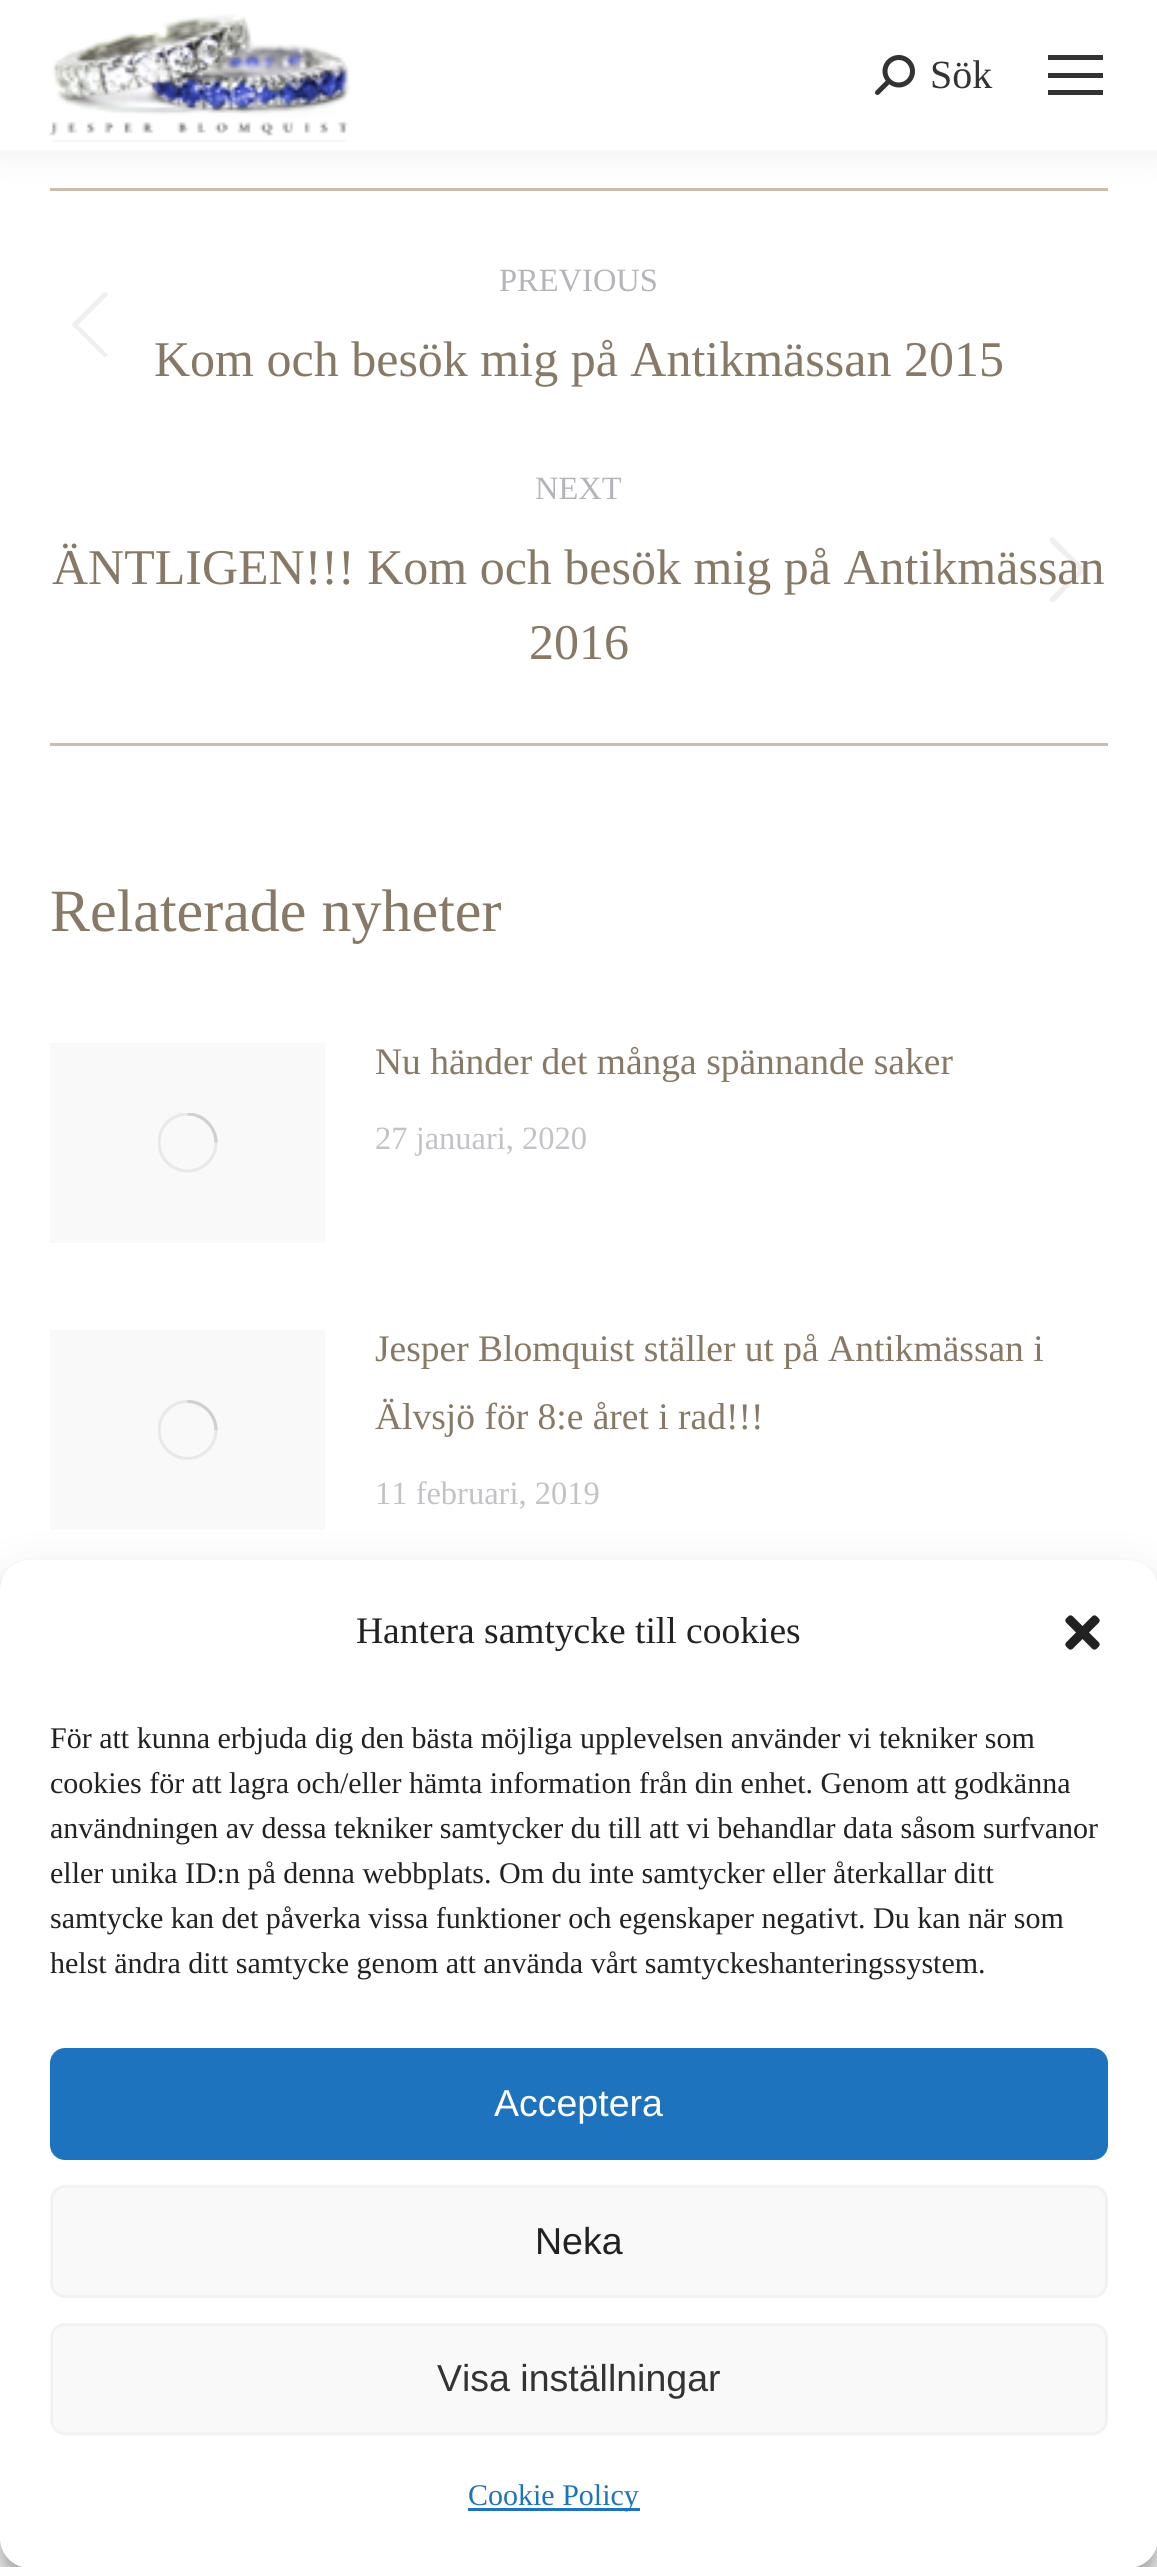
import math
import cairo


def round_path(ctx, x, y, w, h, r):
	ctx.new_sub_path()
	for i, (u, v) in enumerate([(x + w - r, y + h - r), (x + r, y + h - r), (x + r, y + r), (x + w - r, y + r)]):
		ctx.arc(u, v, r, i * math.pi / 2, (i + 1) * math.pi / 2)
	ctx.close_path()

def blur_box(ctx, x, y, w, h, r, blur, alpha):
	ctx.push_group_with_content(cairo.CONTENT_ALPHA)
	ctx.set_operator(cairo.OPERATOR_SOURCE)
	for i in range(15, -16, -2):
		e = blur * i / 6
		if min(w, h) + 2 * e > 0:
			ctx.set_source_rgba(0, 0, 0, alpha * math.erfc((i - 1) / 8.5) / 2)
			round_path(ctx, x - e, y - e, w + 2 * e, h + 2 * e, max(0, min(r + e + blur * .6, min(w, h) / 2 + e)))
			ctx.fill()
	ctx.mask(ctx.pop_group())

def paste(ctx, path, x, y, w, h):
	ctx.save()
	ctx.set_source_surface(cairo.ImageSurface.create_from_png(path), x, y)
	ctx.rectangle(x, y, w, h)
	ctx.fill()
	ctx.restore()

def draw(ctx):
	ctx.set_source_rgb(1, 1, 1)
	ctx.paint()
	ctx.set_source_rgb(0.784, 0.745, 0.671)
	ctx.rectangle(50, 188, 1058, 3)
	ctx.fill()
	ctx.set_source_rgb(0, 0, 0)
	blur_box(ctx, -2, -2, 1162, 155, 0, 19, 0.07)
	ctx.set_source_rgb(1, 1, 1)
	ctx.rectangle(0, 0, 1157, 150)
	ctx.fill()
	paste(ctx, 'media/1.png', 50, 13, 300, 129)
	paste(ctx, 'media/2.png', 875, 55, 40, 40)
	ctx.select_font_face('Liberation Serif')
	ctx.set_font_size(40)
	ctx.set_source_rgb(0.2, 0.2, 0.2)
	ctx.move_to(930, 88)
	ctx.show_text('Sök')
	ctx.rectangle(1048, 55, 55, 5)
	ctx.rectangle(1048, 73, 55, 5)
	ctx.rectangle(1048, 90, 55, 5)
	ctx.fill()
	ctx.set_source_rgb(0.784, 0.745, 0.671)
	ctx.rectangle(50, 743, 1058, 3)
	ctx.fill()
	ctx.set_font_size(32.5)
	ctx.set_source_rgb(0.706, 0.71, 0.733)
	ctx.move_to(499, 291)
	ctx.show_text('PREVIOUS')
	ctx.set_source_rgb(0.945, 0.937, 0.929)
	ctx.new_path()
	ctx.move_to(107, 293)
	ctx.curve_to(108, 294, 108, 296, 107, 296)
	ctx.line_to(78, 325)
	ctx.line_to(106, 353)
	ctx.curve_to(108, 354, 108, 356, 106, 356)
	ctx.curve_to(106, 358, 104, 358, 103, 356)
	ctx.line_to(73, 326)
	ctx.curve_to(72, 326, 72, 324, 73, 323)
	ctx.line_to(103, 293)
	ctx.curve_to(104, 292, 106, 292, 107, 293)
	ctx.close_path()
	ctx.fill()
	ctx.set_font_size(50)
	ctx.set_source_rgb(0.529, 0.475, 0.396)
	ctx.move_to(154, 376)
	ctx.show_text('Kom och besök mig på Antikmässan 2015')
	ctx.set_font_size(32.5)
	ctx.set_source_rgb(0.706, 0.71, 0.733)
	ctx.move_to(535, 499)
	ctx.show_text('NEXT')
	ctx.set_source_rgba(0.529, 0.475, 0.396, 0.12)
	ctx.new_path()
	ctx.move_to(1050, 538)
	ctx.curve_to(1052, 537, 1053, 537, 1054, 538)
	ctx.line_to(1084, 568)
	ctx.curve_to(1085, 569, 1085, 570, 1084, 572)
	ctx.line_to(1054, 602)
	ctx.curve_to(1053, 602, 1052, 602, 1050, 602)
	ctx.curve_to(1050, 600, 1050, 599, 1050, 598)
	ctx.line_to(1079, 570)
	ctx.line_to(1050, 542)
	ctx.curve_to(1050, 541, 1050, 539, 1050, 538)
	ctx.close_path()
	ctx.fill()
	ctx.set_font_size(50)
	ctx.set_source_rgb(0.529, 0.475, 0.396)
	ctx.move_to(52, 584)
	ctx.show_text('ÄNTLIGEN!!! Kom och besök mig på Antikmässan')
	ctx.move_to(529, 659)
	ctx.show_text('2016')
	ctx.set_font_size(60)
	ctx.move_to(50, 931)
	ctx.show_text('Relaterade nyheter')
	ctx.set_source_rgb(0.976, 0.976, 0.976)
	ctx.rectangle(50, 1043, 275, 200)
	ctx.fill()
	ctx.save()
	ctx.rectangle(158, 1113, 60, 60)
	ctx.clip()
	ctx.arc(187.5, 1142.5, 28.5, 0, 2 * math.pi)
	ctx.set_source_rgb(0.914, 0.914, 0.918)
	ctx.set_line_width(3.2)
	ctx.stroke()
	ctx.new_path()
	ctx.move_to(216, 1142.5)
	ctx.curve_to(216, 1127, 203, 1114, 187.5, 1114)
	ctx.set_source_rgba(0.522, 0.525, 0.549, 0.25)
	ctx.stroke()
	ctx.restore()
	ctx.set_font_size(37.5)
	ctx.set_source_rgb(0.529, 0.475, 0.396)
	ctx.move_to(375, 1074)
	ctx.show_text('Nu händer det många spännande saker')
	ctx.set_font_size(32.5)
	ctx.set_source_rgb(0.761, 0.765, 0.776)
	ctx.move_to(375, 1149)
	ctx.show_text('27 januari, 2020')
	ctx.set_source_rgb(0.976, 0.976, 0.976)
	ctx.rectangle(50, 1330, 275, 200)
	ctx.fill()
	ctx.save()
	ctx.rectangle(158, 1400, 60, 60)
	ctx.clip()
	ctx.arc(187.5, 1430, 28.5, 0, 2 * math.pi)
	ctx.set_source_rgb(0.914, 0.914, 0.918)
	ctx.set_line_width(3.2)
	ctx.stroke()
	ctx.restore()
	ctx.new_path()
	ctx.move_to(216, 1430)
	ctx.curve_to(216, 1414.5, 203, 1401.5, 187.5, 1401.5)
	ctx.set_source_rgba(0.522, 0.525, 0.549, 0.25)
	ctx.set_line_width(3.2)
	ctx.stroke()
	ctx.set_font_size(37.5)
	ctx.set_source_rgb(0.529, 0.475, 0.396)
	ctx.move_to(375, 1361)
	ctx.show_text('Jesper Blomquist ställer ut på Antikmässan i')
	ctx.move_to(375, 1429)
	ctx.show_text('Älvsjö för 8:e året i rad!!!')
	ctx.set_font_size(32.5)
	ctx.set_source_rgb(0.761, 0.765, 0.776)
	ctx.move_to(375, 1504)
	ctx.show_text('11 februari, 2019')
	ctx.set_source_rgb(0, 0, 0)
	blur_box(ctx, 0, 1575, 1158, 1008, 30, 7.5, 0.23)
	blur_box(ctx, 0, 1585, 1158, 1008, 30, 25, 0.19)
	ctx.set_source_rgb(1, 1, 1)
	round_path(ctx, 0, 1560, 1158, 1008, 30)
	ctx.fill()
	ctx.set_font_size(37.5)
	ctx.set_source_rgb(0.133, 0.133, 0.133)
	ctx.move_to(356, 1643)
	ctx.show_text('Hantera samtycke till cookies')
	paste(ctx, 'media/3.png', 1065, 1615, 35, 35)
	ctx.set_font_size(30)
	for x, y, s in [
		(50, 1748, 'För att kunna erbjuda dig den bästa möjliga upplevelsen använder vi tekniker som'),
		(50, 1793, 'cookies för att lagra och/eller hämta information från din enhet. Genom att godkänna'),
		(50, 1838, 'användningen av dessa tekniker samtycker du till att vi behandlar data såsom surfvanor'),
		(50, 1883, 'eller unika ID:n på denna webbplats. Om du inte samtycker eller återkallar ditt'),
		(50, 1928, 'samtycke kan det påverka vissa funktioner och egenskaper negativt. Du kan när som'),
		(50, 1973, 'helst ändra ditt samtycke genom att använda vårt samtyckeshanteringssystem.'),
	]:
		ctx.move_to(x, y)
		ctx.show_text(s)
	ctx.set_source_rgb(0.118, 0.451, 0.745)
	round_path(ctx, 51.5, 2049.5, 1055, 109, 13.5)
	ctx.fill_preserve()
	ctx.set_line_width(3)
	ctx.stroke()
	ctx.select_font_face('Liberation Sans')
	ctx.set_font_size(37.5)
	ctx.set_source_rgb(1, 1, 1)
	ctx.move_to(494, 2116)
	ctx.show_text('Acceptera')
	ctx.set_source_rgb(0.976, 0.976, 0.976)
	round_path(ctx, 51.5, 2186.5, 1055, 110, 13.5)
	ctx.fill_preserve()
	ctx.set_source_rgb(0.949, 0.949, 0.949)
	ctx.stroke()
	ctx.set_source_rgb(0.133, 0.133, 0.133)
	ctx.move_to(535, 2254)
	ctx.show_text('Neka')
	ctx.set_source_rgb(0.976, 0.976, 0.976)
	round_path(ctx, 51.5, 2324.5, 1055, 109, 13.5)
	ctx.fill_preserve()
	ctx.set_source_rgb(0.949, 0.949, 0.949)
	ctx.stroke()
	ctx.set_source_rgb(0.2, 0.2, 0.2)
	ctx.move_to(437, 2391)
	ctx.show_text('Visa inställningar')
	ctx.set_source_rgb(0.118, 0.451, 0.745)
	ctx.rectangle(468, 2508, 172, 3)
	ctx.fill()
	ctx.select_font_face('Liberation Serif')
	ctx.set_font_size(30)
	ctx.move_to(468, 2505)
	ctx.show_text('Cookie Policy')


surface = cairo.ImageSurface(cairo.FORMAT_RGB24, 1157, 2567)
ctx = cairo.Context(surface)
options = cairo.FontOptions()
options.set_hint_metrics(cairo.HINT_METRICS_OFF)
options.set_hint_style(cairo.HINT_STYLE_NONE)
ctx.set_font_options(options)
ctx.set_miter_limit(4)
draw(ctx)
surface.write_to_png('image.png')
